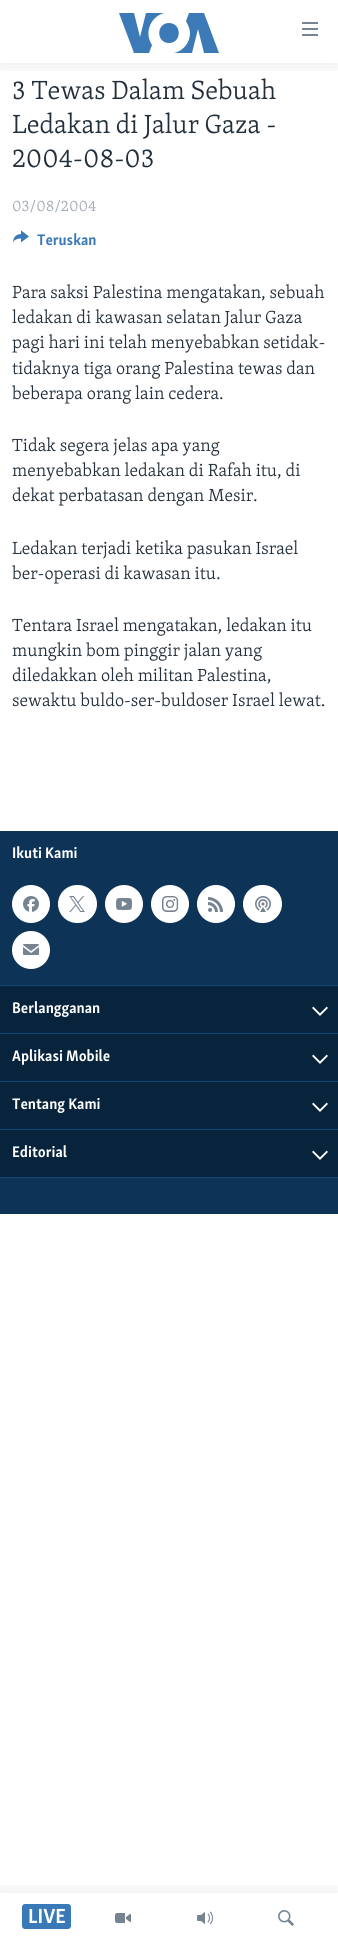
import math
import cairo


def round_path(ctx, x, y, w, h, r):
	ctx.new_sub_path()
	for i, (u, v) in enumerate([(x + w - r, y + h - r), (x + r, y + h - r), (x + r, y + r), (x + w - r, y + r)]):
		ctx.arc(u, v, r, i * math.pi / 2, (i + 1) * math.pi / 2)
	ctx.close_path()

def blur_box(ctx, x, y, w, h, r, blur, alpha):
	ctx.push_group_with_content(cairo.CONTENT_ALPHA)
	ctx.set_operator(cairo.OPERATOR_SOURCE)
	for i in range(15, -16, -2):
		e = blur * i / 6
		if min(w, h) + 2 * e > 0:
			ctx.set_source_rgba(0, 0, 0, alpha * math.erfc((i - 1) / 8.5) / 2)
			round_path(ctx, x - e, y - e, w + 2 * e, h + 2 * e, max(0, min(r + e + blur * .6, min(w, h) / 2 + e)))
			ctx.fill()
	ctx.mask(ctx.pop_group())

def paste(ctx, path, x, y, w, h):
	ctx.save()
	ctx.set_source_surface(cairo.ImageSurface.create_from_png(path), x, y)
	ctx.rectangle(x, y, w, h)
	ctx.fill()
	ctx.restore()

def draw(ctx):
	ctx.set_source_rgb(1, 1, 1)
	ctx.paint()
	ctx.select_font_face('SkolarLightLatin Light')
	ctx.set_font_size(27)
	ctx.set_source_rgb(0.133, 0.184, 0.227)
	for x, y, s in [
		(12, 99, '3 Tewas Dalam Sebuah'),
		(12, 133, 'Ledakan di Jalur Gaza -'),
		(12, 167, '2004-08-03'),
	]:
		ctx.move_to(x, y)
		ctx.show_text(s)
	ctx.set_font_size(15.75)
	ctx.set_source_rgb(0.631, 0.667, 0.706)
	ctx.move_to(12, 211)
	ctx.show_text('03/08/2004')
	paste(ctx, 'media/1.png', 13, 230, 16, 13)
	ctx.select_font_face('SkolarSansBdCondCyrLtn', cairo.FONT_SLANT_NORMAL, cairo.FONT_WEIGHT_BOLD)
	ctx.set_source_rgb(0.227, 0.475, 0.718)
	ctx.move_to(37, 245)
	ctx.show_text('Teruskan')
	ctx.select_font_face('SkolarLightLatin Light')
	ctx.set_font_size(18)
	ctx.set_source_rgb(0.133, 0.184, 0.227)
	for x, y, s in [
		(12, 298, 'Para saksi Palestina mengatakan, sebuah'),
		(12, 323, 'ledakan di kawasan selatan Jalur Gaza'),
		(12, 348, 'pagi hari ini telah menyebabkan setidak-'),
		(12, 374, 'tidaknya tiga orang Palestina tewas dan'),
		(12, 399, 'beberapa orang lain cedera.'),
		(12, 451, 'Tidak segera jelas apa yang'),
		(12, 476, 'menyebabkan ledakan di Rafah itu, di'),
		(12, 501, 'dekat perbatasan dengan Mesir.'),
		(12, 554, 'Ledakan terjadi ketika pasukan Israel'),
		(12, 579, 'ber-operasi di kawasan itu.'),
		(12, 631, 'Tentara Israel mengatakan, ledakan itu'),
		(12, 656, 'mungkin bom pinggir jalan yang'),
		(12, 681, 'diledakkan oleh militan Palestina,'),
		(12, 706, 'sewaktu buldo-ser-buldoser Israel lewat.'),
	]:
		ctx.move_to(x, y)
		ctx.show_text(s)
	ctx.set_source_rgb(0.051, 0.204, 0.337)
	ctx.rectangle(0, 831, 338, 383)
	ctx.fill()
	ctx.set_source_rgb(0.075, 0.286, 0.463)
	ctx.rectangle(0, 1177, 338, 1)
	ctx.fill()
	ctx.select_font_face('SkolarSansBdCondCyrLtn', cairo.FONT_SLANT_NORMAL, cairo.FONT_WEIGHT_BOLD)
	ctx.set_font_size(15.75)
	ctx.set_source_rgb(1, 1, 1)
	ctx.move_to(12, 858)
	ctx.show_text('Ikuti Kami')
	ctx.new_path()
	ctx.arc(31, 904, 19, 0, 2 * math.pi)
	ctx.fill()
	paste(ctx, 'media/2.png', 23, 896, 16, 16)
	round_path(ctx, 58, 885, 39, 38, 19)
	ctx.fill()
	paste(ctx, 'media/3.png', 69, 896, 16, 16)
	ctx.arc(124, 904, 19, 0, 2 * math.pi)
	ctx.fill()
	paste(ctx, 'media/4.png', 116, 898, 16, 12)
	ctx.arc(170, 904, 19, 0, 2 * math.pi)
	ctx.fill()
	paste(ctx, 'media/5.png', 162, 896, 17, 16)
	ctx.arc(216, 904, 19, 0, 2 * math.pi)
	ctx.fill()
	paste(ctx, 'media/6.png', 208, 897, 15, 15)
	round_path(ctx, 243, 885, 39, 38, 19)
	ctx.fill()
	paste(ctx, 'media/7.png', 255, 896, 16, 16)
	ctx.arc(31, 950, 19, 0, 2 * math.pi)
	ctx.fill()
	paste(ctx, 'media/8.png', 23, 944, 16, 11)
	ctx.set_source_rgb(0.075, 0.286, 0.463)
	ctx.rectangle(0, 985, 338, 1)
	ctx.fill()
	ctx.set_source_rgb(0.035, 0.141, 0.239)
	ctx.rectangle(0, 986, 338, 47)
	ctx.fill()
	ctx.set_source_rgb(1, 1, 1)
	ctx.move_to(12, 1013)
	ctx.show_text('Berlangganan')
	paste(ctx, 'media/9.png', 312, 1006, 16, 10)
	ctx.set_source_rgb(0.075, 0.286, 0.463)
	ctx.rectangle(0, 1033, 338, 1)
	ctx.fill()
	ctx.set_source_rgb(0.035, 0.141, 0.239)
	ctx.rectangle(0, 1034, 338, 47)
	ctx.fill()
	ctx.set_source_rgb(1, 1, 1)
	ctx.move_to(12, 1061)
	ctx.show_text('Aplikasi Mobile')
	paste(ctx, 'media/9.png', 312, 1054, 16, 10)
	ctx.set_source_rgb(0.075, 0.286, 0.463)
	ctx.rectangle(0, 1081, 338, 1)
	ctx.fill()
	ctx.set_source_rgb(0.035, 0.141, 0.239)
	ctx.rectangle(0, 1082, 338, 47)
	ctx.fill()
	ctx.set_source_rgb(1, 1, 1)
	ctx.move_to(12, 1109)
	ctx.show_text('Tentang Kami')
	paste(ctx, 'media/9.png', 312, 1102, 16, 10)
	ctx.set_source_rgb(0.075, 0.286, 0.463)
	ctx.rectangle(0, 1129, 338, 1)
	ctx.fill()
	ctx.set_source_rgb(0.035, 0.141, 0.239)
	ctx.rectangle(0, 1130, 338, 47)
	ctx.fill()
	ctx.set_source_rgb(1, 1, 1)
	ctx.move_to(12, 1157)
	ctx.show_text('Editorial')
	paste(ctx, 'media/9.png', 312, 1150, 16, 10)
	ctx.save()
	ctx.rectangle(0, 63, 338, 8)
	ctx.clip()
	ctx.set_source_rgb(0, 0, 0)
	blur_box(ctx, 0, 0, 338, 63, 0, 10, 0.1)
	ctx.restore()
	ctx.set_source_rgb(0.231, 0.475, 0.718)
	ctx.new_path()
	ctx.move_to(152, 45)
	ctx.line_to(149, 53)
	ctx.line_to(134, 53)
	ctx.line_to(119, 13)
	ctx.line_to(134, 13)
	ctx.line_to(140, 37)
	ctx.line_to(146, 13)
	ctx.line_to(164, 13)
	ctx.curve_to(150, 17, 144, 33, 152, 45)
	ctx.close_path()
	ctx.move_to(169, 23)
	ctx.curve_to(156, 23, 156, 43, 169, 43)
	ctx.curve_to(182, 43, 182, 23, 169, 23)
	ctx.close_path()
	ctx.move_to(190, 33)
	ctx.curve_to(190, 43, 183, 51, 174, 53)
	ctx.line_to(192, 53)
	ctx.line_to(198, 29)
	ctx.line_to(204, 53)
	ctx.line_to(219, 53)
	ctx.line_to(204, 13)
	ctx.line_to(189, 13)
	ctx.line_to(186, 21)
	ctx.curve_to(188, 25, 190, 29, 190, 33)
	ctx.close_path()
	ctx.fill()
	paste(ctx, 'media/10.png', 302, 22, 16, 14)
	ctx.save()
	ctx.rectangle(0, 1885, 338, 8)
	ctx.clip()
	ctx.set_source_rgb(0, 0, 0)
	blur_box(ctx, 0, 1893, 338, 50, 0, 10, 0.1)
	ctx.restore()
	ctx.set_source_rgb(0.227, 0.475, 0.718)
	round_path(ctx, 22, 1904, 49, 25, 3)
	ctx.fill()
	ctx.set_font_size(21)
	ctx.set_source_rgb(1, 1, 1)
	ctx.move_to(28, 1923)
	ctx.show_text('LIVE')
	paste(ctx, 'media/11.png', 115, 1913, 16, 10)
	paste(ctx, 'media/12.png', 197, 1911, 16, 14)
	paste(ctx, 'media/13.png', 278, 1910, 16, 16)


surface = cairo.ImageSurface(cairo.FORMAT_RGB24, 338, 1943)
ctx = cairo.Context(surface)
options = cairo.FontOptions()
options.set_hint_metrics(cairo.HINT_METRICS_OFF)
options.set_hint_style(cairo.HINT_STYLE_NONE)
ctx.set_font_options(options)
ctx.set_miter_limit(4)
draw(ctx)
surface.write_to_png('image.png')
